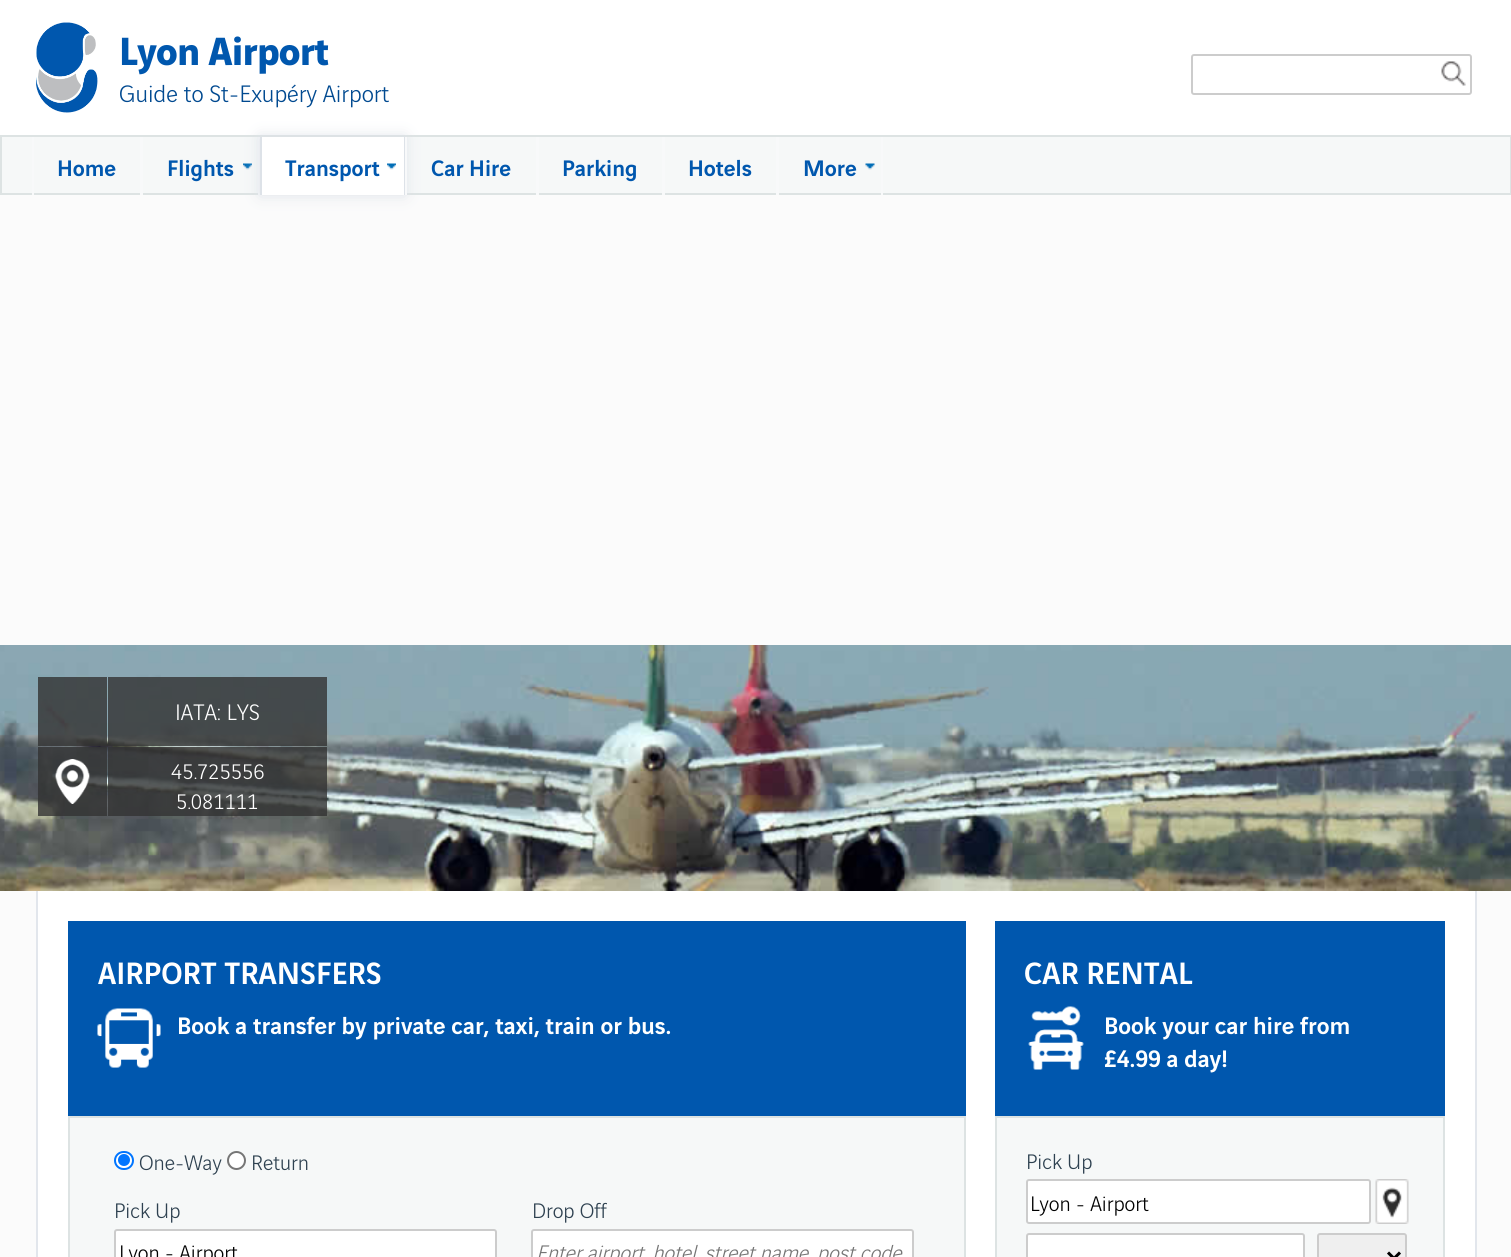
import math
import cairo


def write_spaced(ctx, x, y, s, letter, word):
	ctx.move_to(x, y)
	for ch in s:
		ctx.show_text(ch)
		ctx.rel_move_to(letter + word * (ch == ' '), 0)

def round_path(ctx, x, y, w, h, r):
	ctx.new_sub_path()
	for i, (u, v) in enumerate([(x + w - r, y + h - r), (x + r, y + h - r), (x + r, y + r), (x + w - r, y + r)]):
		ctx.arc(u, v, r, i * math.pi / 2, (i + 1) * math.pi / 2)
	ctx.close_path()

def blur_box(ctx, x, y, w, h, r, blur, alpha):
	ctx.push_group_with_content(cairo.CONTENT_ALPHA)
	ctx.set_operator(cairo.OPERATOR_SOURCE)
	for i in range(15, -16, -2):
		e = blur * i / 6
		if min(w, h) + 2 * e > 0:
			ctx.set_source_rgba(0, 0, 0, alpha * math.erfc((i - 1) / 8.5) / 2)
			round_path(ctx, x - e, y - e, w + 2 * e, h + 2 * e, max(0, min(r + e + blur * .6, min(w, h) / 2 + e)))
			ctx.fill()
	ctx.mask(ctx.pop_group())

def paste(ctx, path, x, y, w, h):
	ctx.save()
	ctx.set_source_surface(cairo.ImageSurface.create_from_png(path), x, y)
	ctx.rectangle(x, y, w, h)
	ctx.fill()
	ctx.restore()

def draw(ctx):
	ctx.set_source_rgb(0.984, 0.984, 0.984)
	ctx.paint()
	ctx.set_source_rgb(1, 1, 1)
	ctx.rectangle(0, 0, 1511, 135)
	ctx.fill()
	paste(ctx, 'media/1.png', 36, 22, 62, 91)
	ctx.select_font_face('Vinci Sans', cairo.FONT_SLANT_NORMAL, cairo.FONT_WEIGHT_BOLD)
	ctx.set_font_size(42)
	ctx.set_source_rgb(0, 0.341, 0.682)
	write_spaced(ctx, 119, 65, 'Lyon Airport', -0.75, 0)
	ctx.select_font_face('Vinci Sans Light')
	ctx.set_font_size(25.5)
	ctx.set_source_rgb(0, 0.286, 0.565)
	ctx.move_to(119, 102)
	ctx.show_text('Guide to St-Exupéry Airport')
	ctx.set_source_rgb(0.961, 0.969, 0.969)
	ctx.rectangle(1, 136, 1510, 58)
	ctx.fill_preserve()
	ctx.set_source_rgb(0.867, 0.89, 0.89)
	ctx.stroke()
	round_path(ctx, 1192, 55, 279, 39, 2)
	ctx.set_source_rgb(0.8, 0.8, 0.8)
	ctx.stroke()
	paste(ctx, 'media/2.png', 1441, 61, 25, 25)
	ctx.set_source_rgb(0.969, 0.976, 0.98)
	ctx.rectangle(140, 137, 3, 58)
	ctx.fill()
	ctx.rectangle(32, 137, 2, 58)
	ctx.fill()
	ctx.select_font_face('Vinci Sans Medium')
	ctx.set_font_size(24)
	ctx.set_source_rgb(0, 0.341, 0.682)
	ctx.move_to(57, 176)
	ctx.show_text('Home')
	paste(ctx, 'media/3.png', 243, 163, 9, 7)
	ctx.set_source_rgb(0.969, 0.976, 0.98)
	ctx.rectangle(258, 137, 2, 58)
	ctx.fill()
	ctx.set_source_rgb(0, 0.341, 0.682)
	ctx.move_to(167, 176)
	ctx.show_text('Flights')
	ctx.set_source_rgb(0.867, 0.886, 0.91)
	blur_box(ctx, 260, 137, 145, 58, 0, 7.5, 1)
	ctx.set_source_rgb(1, 1, 1)
	ctx.rectangle(262, 137, 142, 58)
	ctx.fill()
	paste(ctx, 'media/4.png', 387, 163, 9, 7)
	ctx.set_source_rgb(0.867, 0.886, 0.91)
	ctx.rectangle(404, 137, 1, 58)
	ctx.fill()
	ctx.rectangle(260, 137, 2, 58)
	ctx.fill()
	ctx.set_source_rgb(0, 0.341, 0.682)
	ctx.move_to(285, 176)
	ctx.show_text('Transport')
	ctx.set_source_rgb(0.969, 0.976, 0.98)
	ctx.rectangle(536, 137, 3, 58)
	ctx.fill()
	ctx.rectangle(405, 137, 2, 58)
	ctx.fill()
	ctx.set_source_rgb(0, 0.341, 0.682)
	ctx.move_to(431, 176)
	ctx.show_text('Car Hire')
	ctx.set_source_rgb(0.969, 0.976, 0.98)
	ctx.rectangle(662, 137, 3, 58)
	ctx.fill()
	ctx.set_source_rgb(0, 0.341, 0.682)
	ctx.move_to(562, 176)
	ctx.show_text('Parking')
	ctx.set_source_rgb(0.969, 0.976, 0.98)
	ctx.rectangle(776, 137, 3, 58)
	ctx.fill()
	ctx.set_source_rgb(0, 0.341, 0.682)
	ctx.move_to(688, 176)
	ctx.show_text('Hotels')
	paste(ctx, 'media/5.png', 865, 163, 10, 7)
	ctx.set_source_rgb(0.969, 0.976, 0.98)
	ctx.rectangle(881, 137, 2, 58)
	ctx.fill()
	ctx.set_source_rgb(0, 0.341, 0.682)
	ctx.move_to(803, 176)
	ctx.show_text('More')
	paste(ctx, 'media/6.png', 0, 645, 1511, 246)
	ctx.set_source_rgba(0.2, 0.2, 0.2, 0.8)
	ctx.rectangle(38, 677, 69, 69)
	ctx.fill()
	ctx.rectangle(108, 677, 219, 69)
	ctx.fill()
	ctx.select_font_face('Vinci Sans Light')
	ctx.set_source_rgb(1, 1, 1)
	ctx.move_to(175, 720)
	ctx.show_text('IATA: LYS')
	ctx.set_source_rgba(0.2, 0.2, 0.2, 0.8)
	ctx.rectangle(38, 747, 69, 69)
	ctx.fill()
	paste(ctx, 'media/7.png', 55, 759, 35, 45)
	ctx.rectangle(108, 747, 219, 69)
	ctx.fill()
	ctx.set_font_size(22.5)
	ctx.set_source_rgb(1, 1, 1)
	ctx.move_to(171, 779)
	ctx.show_text('45.725556')
	ctx.move_to(176, 809)
	ctx.show_text('5.081111')
	ctx.rectangle(38, 891, 1437, 366)
	ctx.fill()
	ctx.set_source_rgb(0.886, 0.902, 0.922)
	ctx.rectangle(1475, 891, 2, 366)
	ctx.rectangle(36, 891, 2, 366)
	ctx.fill()
	ctx.set_source_rgb(0, 0.341, 0.682)
	ctx.rectangle(68, 921, 898, 195)
	ctx.fill()
	ctx.select_font_face('Vinci Sans Medium')
	ctx.set_font_size(33)
	ctx.set_source_rgb(1, 1, 1)
	ctx.move_to(98, 984)
	ctx.show_text('AIRPORT TRANSFERS')
	paste(ctx, 'media/8.png', 97, 1008, 64, 60)
	ctx.set_font_size(25.5)
	ctx.move_to(177, 1034)
	ctx.show_text('Book a transfer by private car, taxi, train or bus.')
	ctx.set_source_rgb(0.961, 0.969, 0.969)
	ctx.rectangle(69, 1117, 896, 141)
	ctx.fill_preserve()
	ctx.set_source_rgb(0.867, 0.89, 0.89)
	ctx.stroke()
	ctx.set_source_rgb(1, 1, 1)
	round_path(ctx, 115, 1152, 18, 17, 8.5)
	ctx.fill_preserve()
	ctx.set_source_rgb(0, 0.459, 1)
	ctx.stroke()
	ctx.arc(124, 1160, 6, 0, 2 * math.pi)
	ctx.fill()
	ctx.select_font_face('Vinci Sans Light')
	ctx.set_font_size(22.5)
	ctx.set_source_rgb(0.18, 0.255, 0.314)
	ctx.move_to(139, 1170)
	ctx.show_text('One-Way')
	ctx.set_source_rgb(1, 1, 1)
	ctx.new_path()
	ctx.arc(236.5, 1160.5, 8.5, 0, 2 * math.pi)
	ctx.fill_preserve()
	ctx.set_source_rgb(0.463, 0.463, 0.463)
	ctx.stroke()
	ctx.set_source_rgb(0.18, 0.255, 0.314)
	ctx.move_to(251, 1170)
	ctx.show_text('Return')
	ctx.move_to(114, 1218)
	ctx.show_text('Pick Up')
	ctx.set_source_rgb(1, 1, 1)
	round_path(ctx, 115, 1230, 381, 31, 2)
	ctx.fill_preserve()
	ctx.set_source_rgb(0.8, 0.8, 0.8)
	ctx.stroke()
	ctx.set_source_rgb(0, 0, 0)
	ctx.move_to(119, 1260)
	ctx.show_text('Lyon - Airport')
	ctx.set_source_rgb(0.18, 0.255, 0.314)
	ctx.move_to(532, 1218)
	ctx.show_text('Drop Off')
	ctx.set_source_rgb(1, 1, 1)
	round_path(ctx, 532, 1230, 381, 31, 2)
	ctx.fill_preserve()
	ctx.set_source_rgb(0.8, 0.8, 0.8)
	ctx.stroke()
	ctx.select_font_face('Vinci Sans Light', cairo.FONT_SLANT_ITALIC)
	ctx.set_source_rgb(0.459, 0.459, 0.459)
	ctx.move_to(536, 1260)
	ctx.show_text('Enter airport, hotel, street name, post code.')
	ctx.set_source_rgb(0, 0.341, 0.682)
	ctx.rectangle(995, 921, 450, 195)
	ctx.fill()
	ctx.select_font_face('Vinci Sans Medium')
	ctx.set_font_size(33)
	ctx.set_source_rgb(1, 1, 1)
	ctx.move_to(1024, 984)
	ctx.show_text('CAR RENTAL')
	paste(ctx, 'media/9.png', 1028, 1006, 56, 64)
	ctx.set_font_size(25.5)
	ctx.move_to(1104, 1034)
	ctx.show_text('Book your car hire from')
	ctx.move_to(1104, 1067)
	ctx.show_text('£4.99 a day!')
	ctx.set_source_rgb(0.961, 0.969, 0.969)
	ctx.rectangle(996, 1117, 448, 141)
	ctx.fill_preserve()
	ctx.set_source_rgb(0.867, 0.89, 0.89)
	ctx.stroke()
	ctx.select_font_face('Vinci Sans Light')
	ctx.set_font_size(22.5)
	ctx.set_source_rgb(0.18, 0.255, 0.314)
	ctx.move_to(1026, 1169)
	ctx.show_text('Pick Up')
	ctx.set_source_rgb(1, 1, 1)
	round_path(ctx, 1027, 1180, 343, 43, 2)
	ctx.fill_preserve()
	ctx.set_source_rgb(0.8, 0.8, 0.8)
	ctx.stroke()
	ctx.set_source_rgb(0, 0, 0)
	ctx.move_to(1030, 1211)
	ctx.show_text('Lyon - Airport')
	paste(ctx, 'media/10.png', 1375, 1179, 34, 45)
	ctx.set_source_rgb(1, 1, 1)
	round_path(ctx, 1027, 1234, 277, 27, 2)
	ctx.fill_preserve()
	ctx.set_source_rgb(0.8, 0.8, 0.8)
	ctx.stroke()
	ctx.set_source_rgb(0.937, 0.937, 0.937)
	round_path(ctx, 1318, 1234, 88, 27, 2)
	ctx.fill_preserve()
	ctx.set_source_rgb(0.8, 0.8, 0.8)
	ctx.stroke()
	ctx.new_path()
	ctx.move_to(1388, 1252.5)
	ctx.line_to(1394, 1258.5)
	ctx.line_to(1400, 1252.5)
	ctx.set_source_rgb(0, 0, 0)
	ctx.set_line_width(3)
	ctx.stroke()


surface = cairo.ImageSurface(cairo.FORMAT_RGB24, 1511, 1257)
ctx = cairo.Context(surface)
options = cairo.FontOptions()
options.set_hint_metrics(cairo.HINT_METRICS_OFF)
options.set_hint_style(cairo.HINT_STYLE_NONE)
ctx.set_font_options(options)
ctx.set_miter_limit(4)
draw(ctx)
surface.write_to_png('image.png')
